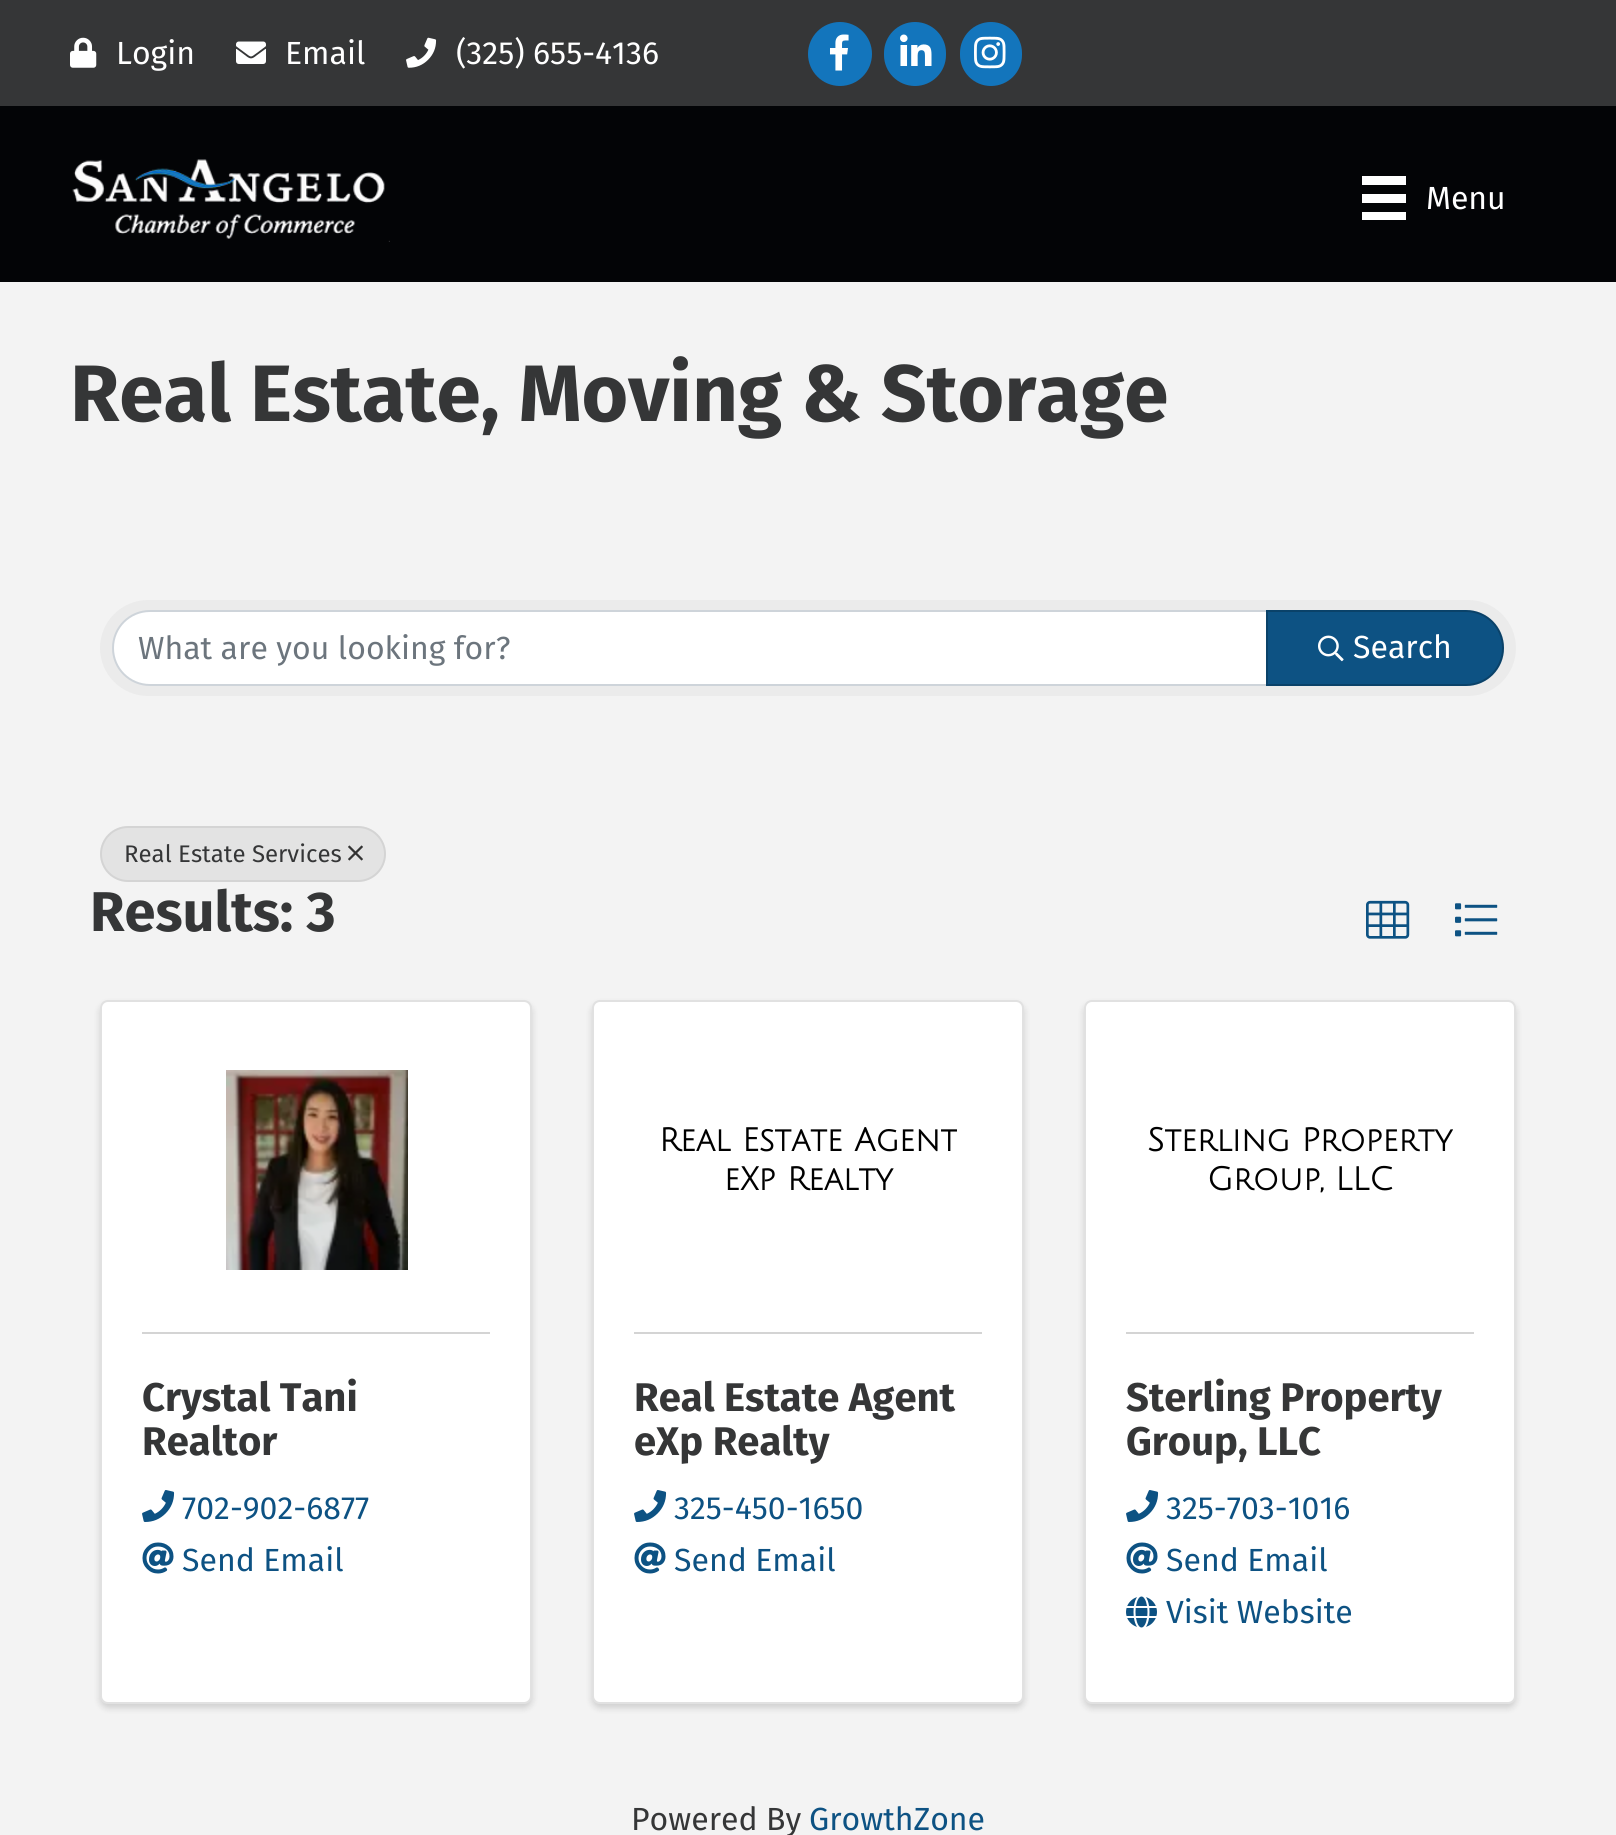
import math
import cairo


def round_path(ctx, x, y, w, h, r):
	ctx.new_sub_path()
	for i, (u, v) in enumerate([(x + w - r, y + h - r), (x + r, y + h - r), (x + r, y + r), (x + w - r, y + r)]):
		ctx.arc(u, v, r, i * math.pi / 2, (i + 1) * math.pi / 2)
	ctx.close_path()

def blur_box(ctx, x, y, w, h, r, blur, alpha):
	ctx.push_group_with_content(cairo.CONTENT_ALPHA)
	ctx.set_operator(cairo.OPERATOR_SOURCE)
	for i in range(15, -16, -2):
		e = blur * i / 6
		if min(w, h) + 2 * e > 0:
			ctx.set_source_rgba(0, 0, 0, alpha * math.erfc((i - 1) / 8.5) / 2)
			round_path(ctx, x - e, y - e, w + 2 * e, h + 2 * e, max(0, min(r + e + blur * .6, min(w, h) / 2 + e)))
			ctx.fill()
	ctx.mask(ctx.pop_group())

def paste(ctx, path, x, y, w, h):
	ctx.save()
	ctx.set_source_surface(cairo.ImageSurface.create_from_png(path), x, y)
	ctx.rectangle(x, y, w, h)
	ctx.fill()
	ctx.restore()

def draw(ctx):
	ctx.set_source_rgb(0.208, 0.212, 0.216)
	ctx.paint()
	paste(ctx, 'media/1.png', 70, 37, 27, 31)
	ctx.select_font_face('Fira Sans')
	ctx.set_font_size(32)
	ctx.set_source_rgb(1, 1, 1)
	ctx.move_to(116, 64)
	ctx.show_text('Login')
	paste(ctx, 'media/2.png', 236, 41, 30, 23)
	ctx.move_to(285, 64)
	ctx.show_text('Email')
	paste(ctx, 'media/3.png', 406, 37, 31, 31)
	ctx.move_to(456, 64)
	ctx.show_text('(325) 655-4136')
	ctx.set_source_rgb(0.075, 0.459, 0.737)
	ctx.new_path()
	ctx.arc(840, 54, 32, 0, 2 * math.pi)
	ctx.fill()
	paste(ctx, 'media/4.png', 830, 34, 19, 37)
	round_path(ctx, 884, 22, 62, 64, 31)
	ctx.fill()
	paste(ctx, 'media/5.png', 900, 34, 32, 32)
	round_path(ctx, 960, 22, 62, 64, 31)
	ctx.fill()
	paste(ctx, 'media/6.png', 974, 36, 32, 33)
	ctx.set_source_rgb(0.012, 0.016, 0.024)
	ctx.rectangle(0, 106, 1616, 176)
	ctx.fill()
	paste(ctx, 'media/7.png', 72, 159, 318, 83)
	ctx.set_source_rgb(1, 1, 1)
	ctx.rectangle(1362, 176, 44, 9)
	ctx.rectangle(1362, 194, 44, 9)
	ctx.rectangle(1362, 212, 44, 8)
	ctx.fill()
	ctx.move_to(1426, 209)
	ctx.show_text('Menu')
	ctx.set_source_rgb(0.953, 0.953, 0.953)
	ctx.rectangle(0, 282, 1616, 1553)
	ctx.fill()
	ctx.select_font_face('Fira Sans', cairo.FONT_SLANT_NORMAL, cairo.FONT_WEIGHT_BOLD)
	ctx.set_font_size(80)
	ctx.set_source_rgb(0.208, 0.212, 0.216)
	ctx.move_to(70, 421)
	ctx.show_text('Real Estate, Moving & Storage')
	ctx.set_source_rgb(0.918, 0.918, 0.918)
	round_path(ctx, 100, 600, 1416, 96, 48)
	ctx.fill()
	ctx.set_source_rgb(1, 1, 1)
	ctx.new_path()
	ctx.move_to(150, 611)
	ctx.line_to(1267, 611)
	ctx.line_to(1267, 685)
	ctx.line_to(150, 685)
	ctx.curve_to(129.5, 685, 113, 668.5, 113, 648)
	ctx.curve_to(113, 627.5, 129.5, 611, 150, 611)
	ctx.close_path()
	ctx.fill_preserve()
	ctx.set_source_rgb(0.808, 0.831, 0.855)
	ctx.stroke()
	ctx.select_font_face('Fira Sans')
	ctx.set_font_size(32)
	ctx.set_source_rgb(0.424, 0.459, 0.49)
	ctx.move_to(138, 659)
	ctx.show_text('What are you looking for?')
	ctx.set_source_rgb(0.051, 0.322, 0.514)
	ctx.new_path()
	ctx.move_to(1266, 610)
	ctx.line_to(1466, 610)
	ctx.curve_to(1487, 610, 1504, 627, 1504, 648)
	ctx.curve_to(1504, 669, 1487, 686, 1466, 686)
	ctx.line_to(1266, 686)
	ctx.close_path()
	ctx.fill()
	ctx.new_path()
	ctx.move_to(1267, 611)
	ctx.line_to(1466, 611)
	ctx.curve_to(1486.5, 611, 1503, 627.5, 1503, 648)
	ctx.curve_to(1503, 668.5, 1486.5, 685, 1466, 685)
	ctx.line_to(1267, 685)
	ctx.close_path()
	ctx.set_source_rgba(0, 0, 0, 0.2)
	ctx.stroke()
	paste(ctx, 'media/8.png', 1318, 635, 26, 27)
	ctx.set_source_rgb(1, 1, 1)
	ctx.move_to(1353, 658)
	ctx.show_text('Search')
	ctx.set_source_rgb(0.89, 0.89, 0.89)
	round_path(ctx, 100, 826, 286, 56, 28)
	ctx.fill()
	round_path(ctx, 101, 827, 284, 54, 27)
	ctx.set_source_rgba(0, 0, 0, 0.07)
	ctx.stroke()
	ctx.set_font_size(24)
	ctx.set_source_rgb(0.208, 0.212, 0.216)
	ctx.move_to(124, 862)
	ctx.show_text('Real Estate Services')
	paste(ctx, 'media/9.png', 348, 845, 15, 16)
	ctx.select_font_face('Fira Sans', cairo.FONT_SLANT_NORMAL, cairo.FONT_WEIGHT_BOLD)
	ctx.set_font_size(56)
	ctx.move_to(90, 931)
	ctx.show_text('Results: 3')
	paste(ctx, 'media/10.png', 1366, 900, 44, 39)
	paste(ctx, 'media/11.png', 1455, 903, 43, 34)
	ctx.set_source_rgb(0, 0, 0)
	blur_box(ctx, 100, 1004, 432, 704, 8, 3.5, 0.15)
	ctx.set_source_rgb(1, 1, 1)
	round_path(ctx, 100, 1000, 432, 704, 8)
	ctx.fill()
	round_path(ctx, 101, 1001, 430, 702, 7)
	ctx.set_source_rgba(0, 0, 0, 0.12)
	ctx.stroke()
	paste(ctx, 'media/12.png', 226, 1070, 182, 200)
	ctx.set_source_rgb(0.831, 0.831, 0.831)
	ctx.rectangle(142, 1332, 348, 2)
	ctx.fill()
	ctx.set_font_size(40)
	ctx.set_source_rgb(0.208, 0.212, 0.216)
	ctx.move_to(142, 1411)
	ctx.show_text('Crystal Tani')
	ctx.move_to(142, 1455)
	ctx.show_text('Realtor')
	paste(ctx, 'media/13.png', 142, 1490, 33, 32)
	ctx.select_font_face('Fira Sans')
	ctx.set_font_size(32)
	ctx.set_source_rgb(0.051, 0.322, 0.514)
	ctx.move_to(182, 1519)
	ctx.show_text('702-902-6877')
	paste(ctx, 'media/14.png', 142, 1542, 32, 32)
	ctx.move_to(182, 1571)
	ctx.show_text('Send Email')
	ctx.set_source_rgb(0, 0, 0)
	blur_box(ctx, 592, 1004, 432, 704, 8, 3.5, 0.15)
	ctx.set_source_rgb(1, 1, 1)
	round_path(ctx, 592, 1000, 432, 704, 8)
	ctx.fill()
	round_path(ctx, 593, 1001, 430, 702, 7)
	ctx.set_source_rgba(0, 0, 0, 0.12)
	ctx.stroke()
	ctx.select_font_face('Julius Sans One', cairo.FONT_SLANT_NORMAL, cairo.FONT_WEIGHT_BOLD)
	ctx.set_source_rgb(0, 0, 0)
	ctx.move_to(659, 1151)
	ctx.show_text('Real Estate Agent')
	ctx.move_to(724, 1190)
	ctx.show_text('eXp Realty')
	ctx.set_source_rgb(0.831, 0.831, 0.831)
	ctx.rectangle(634, 1332, 348, 2)
	ctx.fill()
	ctx.select_font_face('Fira Sans', cairo.FONT_SLANT_NORMAL, cairo.FONT_WEIGHT_BOLD)
	ctx.set_font_size(40)
	ctx.set_source_rgb(0.208, 0.212, 0.216)
	ctx.move_to(634, 1411)
	ctx.show_text('Real Estate Agent')
	ctx.move_to(634, 1455)
	ctx.show_text('eXp Realty')
	paste(ctx, 'media/13.png', 634, 1490, 33, 32)
	ctx.select_font_face('Fira Sans')
	ctx.set_font_size(32)
	ctx.set_source_rgb(0.051, 0.322, 0.514)
	ctx.move_to(674, 1519)
	ctx.show_text('325-450-1650')
	paste(ctx, 'media/14.png', 634, 1542, 32, 32)
	ctx.move_to(674, 1571)
	ctx.show_text('Send Email')
	ctx.set_source_rgb(0, 0, 0)
	blur_box(ctx, 1084, 1004, 432, 704, 8, 3.5, 0.15)
	ctx.set_source_rgb(1, 1, 1)
	round_path(ctx, 1084, 1000, 432, 704, 8)
	ctx.fill()
	round_path(ctx, 1085, 1001, 430, 702, 7)
	ctx.set_source_rgba(0, 0, 0, 0.12)
	ctx.stroke()
	ctx.select_font_face('Julius Sans One', cairo.FONT_SLANT_NORMAL, cairo.FONT_WEIGHT_BOLD)
	ctx.set_source_rgb(0, 0, 0)
	ctx.move_to(1147, 1151)
	ctx.show_text('Sterling Property')
	ctx.move_to(1207, 1190)
	ctx.show_text('Group, LLC')
	ctx.set_source_rgb(0.831, 0.831, 0.831)
	ctx.rectangle(1126, 1332, 348, 2)
	ctx.fill()
	ctx.select_font_face('Fira Sans', cairo.FONT_SLANT_NORMAL, cairo.FONT_WEIGHT_BOLD)
	ctx.set_font_size(40)
	ctx.set_source_rgb(0.208, 0.212, 0.216)
	ctx.move_to(1126, 1411)
	ctx.show_text('Sterling Property')
	ctx.move_to(1126, 1455)
	ctx.show_text('Group, LLC')
	paste(ctx, 'media/13.png', 1126, 1490, 33, 32)
	ctx.select_font_face('Fira Sans')
	ctx.set_font_size(32)
	ctx.set_source_rgb(0.051, 0.322, 0.514)
	ctx.move_to(1166, 1519)
	ctx.show_text('325-703-1016')
	paste(ctx, 'media/14.png', 1126, 1542, 32, 32)
	ctx.move_to(1166, 1571)
	ctx.show_text('Send Email')
	paste(ctx, 'media/15.png', 1126, 1596, 31, 32)
	ctx.move_to(1166, 1623)
	ctx.show_text('Visit Website')
	ctx.set_source_rgb(0.208, 0.212, 0.216)
	ctx.move_to(631, 1830)
	ctx.show_text('Powered By')
	ctx.set_source_rgb(0.051, 0.322, 0.514)
	ctx.move_to(809, 1830)
	ctx.show_text('GrowthZone')


surface = cairo.ImageSurface(cairo.FORMAT_RGB24, 1616, 1835)
ctx = cairo.Context(surface)
options = cairo.FontOptions()
options.set_hint_metrics(cairo.HINT_METRICS_OFF)
options.set_hint_style(cairo.HINT_STYLE_NONE)
ctx.set_font_options(options)
ctx.set_miter_limit(4)
draw(ctx)
surface.write_to_png('image.png')
